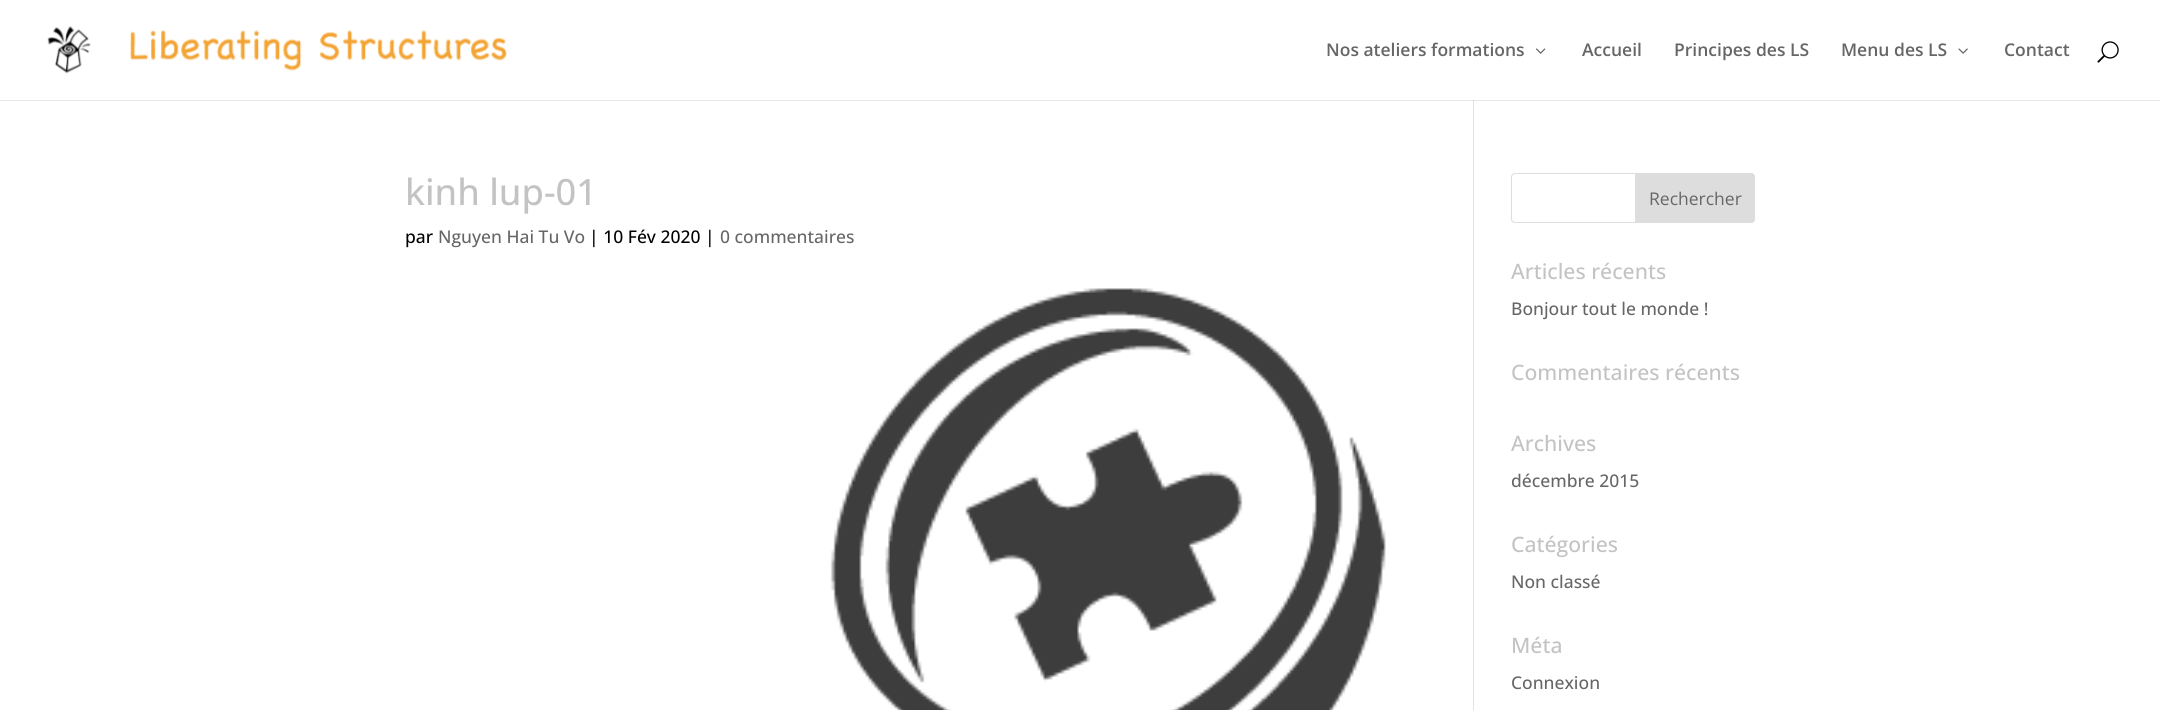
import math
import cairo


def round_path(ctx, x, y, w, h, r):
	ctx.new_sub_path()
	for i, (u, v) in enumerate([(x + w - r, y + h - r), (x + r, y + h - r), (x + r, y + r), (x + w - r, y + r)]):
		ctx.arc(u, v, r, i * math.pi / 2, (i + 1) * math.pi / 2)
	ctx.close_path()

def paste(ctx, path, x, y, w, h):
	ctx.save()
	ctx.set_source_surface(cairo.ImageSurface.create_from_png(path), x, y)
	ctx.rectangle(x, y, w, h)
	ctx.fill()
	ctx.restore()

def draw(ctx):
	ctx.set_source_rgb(1, 1, 1)
	ctx.paint()
	ctx.set_source_rgb(0.902, 0.902, 0.902)
	ctx.rectangle(0, 100, 2160, 1)
	ctx.fill()
	paste(ctx, 'media/1.png', 47, 26, 460, 48)
	ctx.select_font_face('Open Sans SemiBold')
	ctx.set_font_size(17.5)
	ctx.set_source_rgb(0.4, 0.4, 0.4)
	ctx.move_to(1326, 56)
	ctx.show_text('Nos ateliers formations')
	paste(ctx, 'media/2.png', 1536, 48, 10, 6)
	for x, y, s in [
		(1582, 56, 'Accueil'),
		(1674, 56, 'Principes des LS'),
		(1841, 56, 'Menu des LS'),
	]:
		ctx.move_to(x, y)
		ctx.show_text(s)
	paste(ctx, 'media/3.png', 1958, 48, 10, 6)
	ctx.move_to(2004, 56)
	ctx.show_text('Contact')
	paste(ctx, 'media/4.png', 2097, 41, 22, 22)
	ctx.set_source_rgb(0.886, 0.886, 0.886)
	ctx.rectangle(1473, 100, 1, 610)
	ctx.fill()
	ctx.set_source_rgb(0.796, 0.796, 0.796)
	ctx.rectangle(1473, 100, 1, 1)
	ctx.fill()
	ctx.select_font_face('Open Sans Medium')
	ctx.set_font_size(36.25)
	ctx.set_source_rgb(0.765, 0.765, 0.765)
	ctx.move_to(405, 205)
	ctx.show_text('kinh lup-01')
	ctx.set_font_size(17.5)
	ctx.set_source_rgb(0, 0, 0)
	ctx.move_to(405, 243)
	ctx.show_text('par')
	ctx.set_source_rgb(0.4, 0.4, 0.4)
	ctx.move_to(438, 243)
	ctx.show_text('Nguyen Hai Tu Vo')
	ctx.set_source_rgb(0, 0, 0)
	ctx.move_to(589, 243)
	ctx.show_text('| 10 Fév 2020 |')
	ctx.set_source_rgb(0.4, 0.4, 0.4)
	ctx.move_to(720, 243)
	ctx.show_text('0 commentaires')
	paste(ctx, 'media/5.png', 830, 288, 556, 422)
	round_path(ctx, 1511.5, 173.5, 243, 49, 3.5)
	ctx.set_source_rgb(0.867, 0.867, 0.867)
	ctx.set_line_width(1)
	ctx.stroke()
	ctx.new_path()
	ctx.move_to(1635.5, 173.5)
	ctx.line_to(1751, 173.5)
	ctx.curve_to(1753, 173.5, 1754.5, 175, 1754.5, 177)
	ctx.line_to(1754.5, 219)
	ctx.curve_to(1754.5, 221, 1753, 222.5, 1751, 222.5)
	ctx.line_to(1635.5, 222.5)
	ctx.close_path()
	ctx.fill_preserve()
	ctx.stroke()
	ctx.select_font_face('Open Sans')
	ctx.set_source_rgb(0.4, 0.4, 0.4)
	ctx.move_to(1649, 205)
	ctx.show_text('Rechercher')
	ctx.select_font_face('Open Sans Medium')
	ctx.set_font_size(21.25)
	ctx.set_source_rgb(0.765, 0.765, 0.765)
	ctx.move_to(1511, 279)
	ctx.show_text('Articles récents')
	ctx.set_font_size(17.5)
	ctx.set_source_rgb(0.4, 0.4, 0.4)
	ctx.move_to(1511, 315)
	ctx.show_text('Bonjour tout le monde !')
	ctx.set_font_size(21.25)
	ctx.set_source_rgb(0.765, 0.765, 0.765)
	ctx.move_to(1511, 380)
	ctx.show_text('Commentaires récents')
	ctx.move_to(1511, 451)
	ctx.show_text('Archives')
	ctx.set_font_size(17.5)
	ctx.set_source_rgb(0.4, 0.4, 0.4)
	ctx.move_to(1511, 487)
	ctx.show_text('décembre 2015')
	ctx.set_font_size(21.25)
	ctx.set_source_rgb(0.765, 0.765, 0.765)
	ctx.move_to(1511, 552)
	ctx.show_text('Catégories')
	ctx.set_font_size(17.5)
	ctx.set_source_rgb(0.4, 0.4, 0.4)
	ctx.move_to(1511, 588)
	ctx.show_text('Non classé')
	ctx.set_font_size(21.25)
	ctx.set_source_rgb(0.765, 0.765, 0.765)
	ctx.move_to(1511, 653)
	ctx.show_text('Méta')
	ctx.set_font_size(17.5)
	ctx.set_source_rgb(0.4, 0.4, 0.4)
	ctx.move_to(1511, 689)
	ctx.show_text('Connexion')


surface = cairo.ImageSurface(cairo.FORMAT_RGB24, 2160, 710)
ctx = cairo.Context(surface)
options = cairo.FontOptions()
options.set_hint_metrics(cairo.HINT_METRICS_OFF)
options.set_hint_style(cairo.HINT_STYLE_NONE)
ctx.set_font_options(options)
ctx.set_miter_limit(4)
draw(ctx)
surface.write_to_png('image.png')
